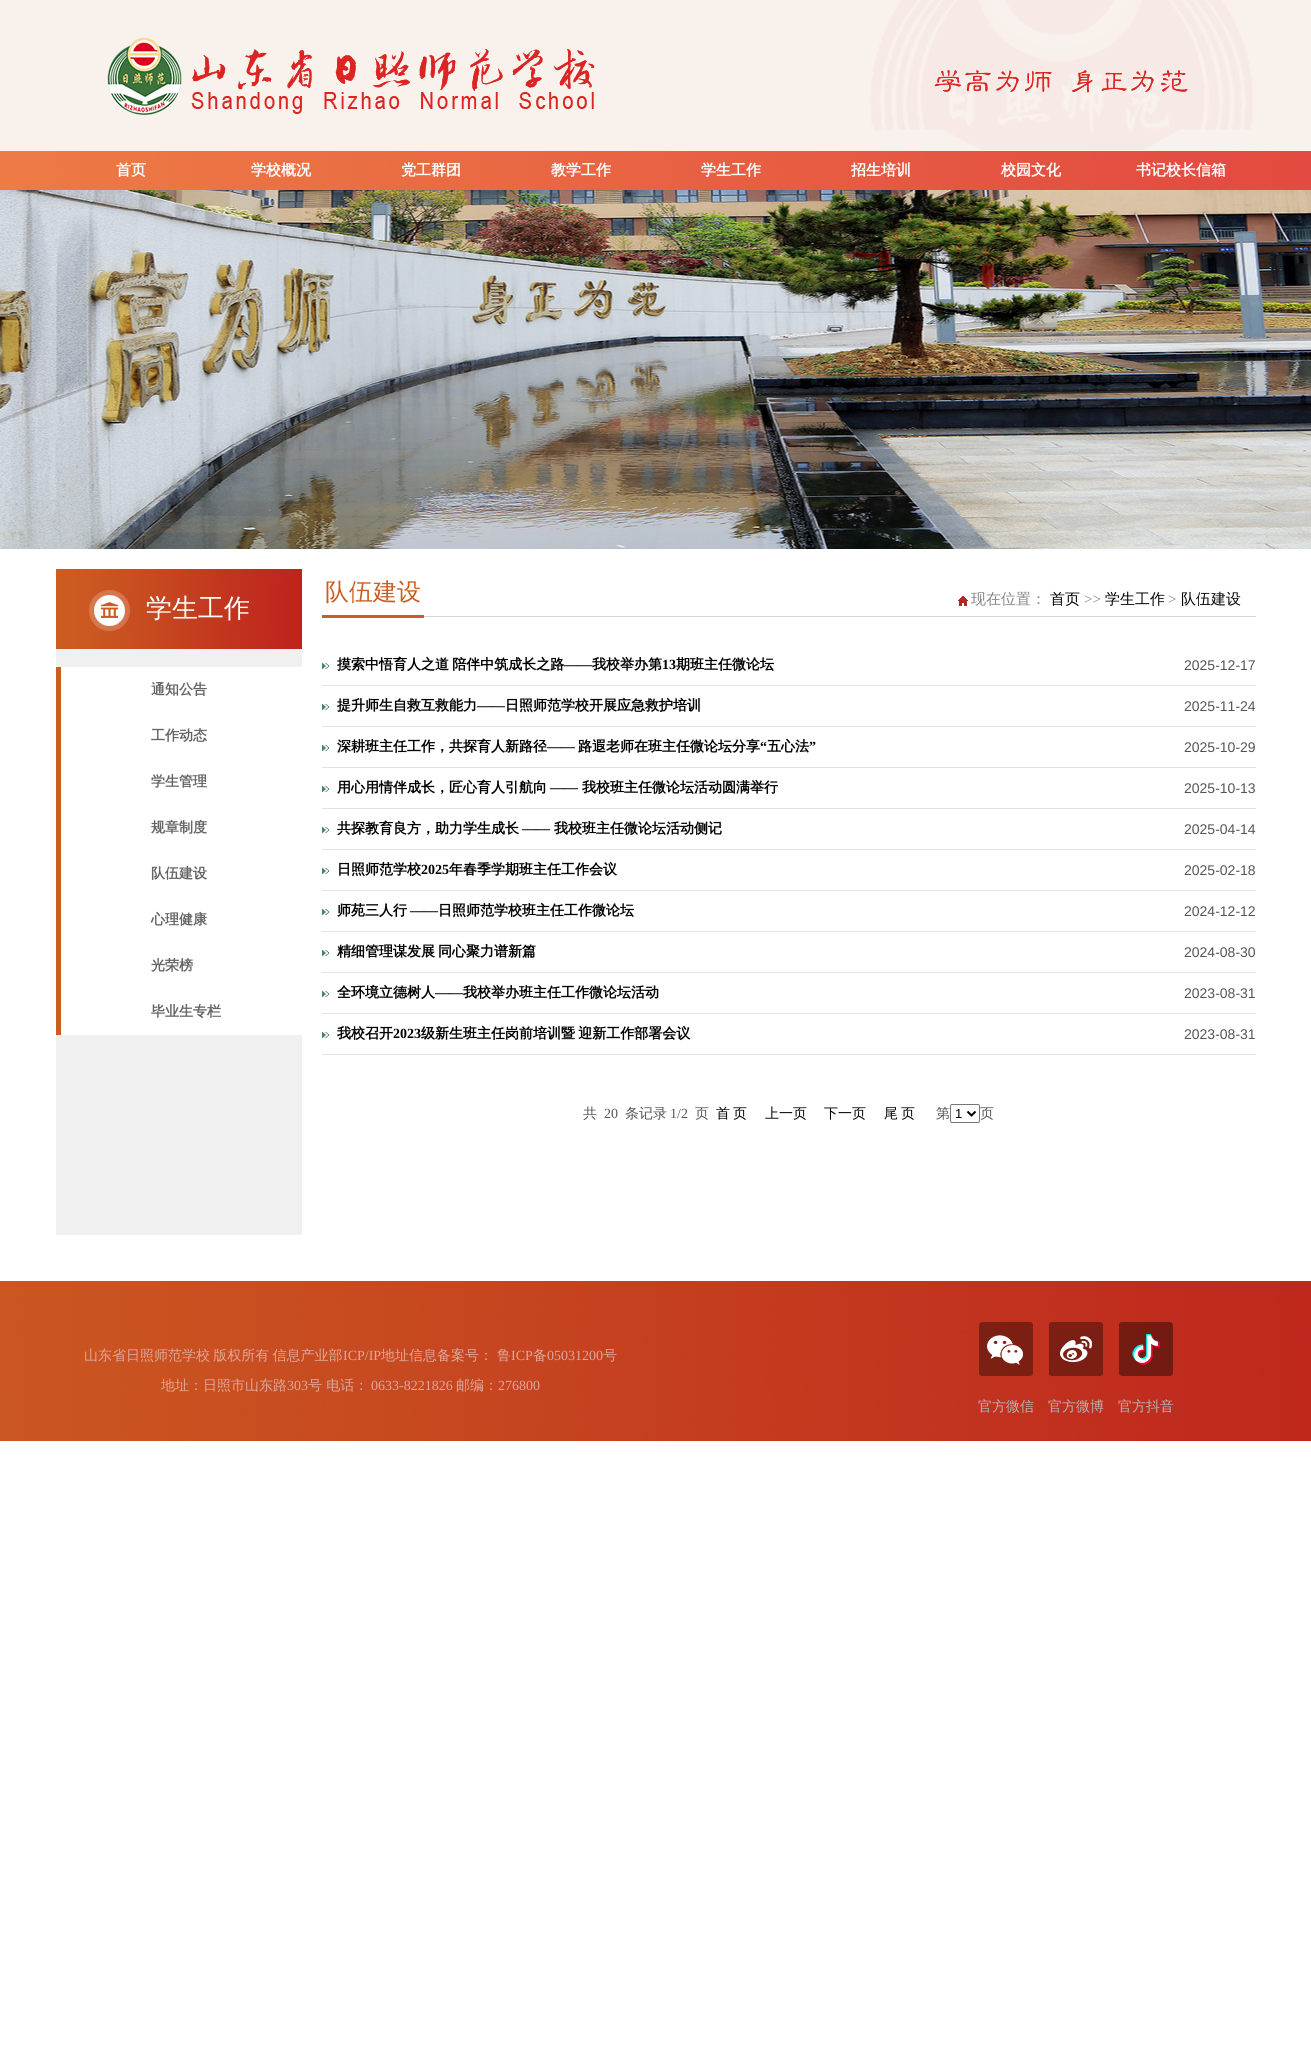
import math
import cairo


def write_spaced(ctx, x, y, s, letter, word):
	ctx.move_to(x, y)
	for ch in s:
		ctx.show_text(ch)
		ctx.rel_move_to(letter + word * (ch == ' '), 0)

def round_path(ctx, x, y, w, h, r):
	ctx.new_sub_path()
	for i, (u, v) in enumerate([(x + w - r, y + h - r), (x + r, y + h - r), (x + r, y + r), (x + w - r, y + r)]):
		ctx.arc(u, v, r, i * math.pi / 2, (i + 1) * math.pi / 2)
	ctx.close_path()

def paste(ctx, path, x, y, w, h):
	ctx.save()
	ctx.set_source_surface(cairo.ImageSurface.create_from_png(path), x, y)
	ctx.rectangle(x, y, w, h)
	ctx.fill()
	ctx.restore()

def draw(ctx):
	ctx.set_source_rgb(1, 1, 1)
	ctx.paint()
	ctx.set_source_rgb(0.969, 0.945, 0.922)
	ctx.rectangle(0, 0, 1311, 151)
	ctx.fill()
	paste(ctx, 'media/1.png', 107, 37, 488, 78)
	paste(ctx, 'media/2.png', 870, 0, 383, 150)
	paste(ctx, 'media/3.png', 0, 151, 1311, 39)
	ctx.select_font_face('WenQuanYi Zen Hei', cairo.FONT_SLANT_NORMAL, cairo.FONT_WEIGHT_BOLD)
	ctx.set_font_size(15)
	ctx.set_source_rgb(1, 1, 1)
	for x, y, s in [
		(116, 175, '首页'),
		(251, 175, '学校概况'),
		(401, 175, '党工群团'),
		(551, 175, '教学工作'),
		(701, 175, '学生工作'),
		(851, 175, '招生培训'),
		(1001, 175, '校园文化'),
		(1136, 175, '书记校长信箱'),
	]:
		ctx.move_to(x, y)
		ctx.show_text(s)
	paste(ctx, 'media/4.png', 0, 190, 1311, 359)
	paste(ctx, 'media/5.png', 56, 569, 246, 80)
	ctx.select_font_face('WenQuanYi Zen Hei Medium')
	ctx.set_font_size(26)
	ctx.move_to(146, 617)
	ctx.show_text('学生工作')
	ctx.set_source_rgb(0.941, 0.941, 0.941)
	ctx.rectangle(56, 649, 246, 586)
	ctx.fill()
	ctx.set_source_rgb(1, 1, 1)
	ctx.rectangle(61, 667, 241, 368)
	ctx.fill()
	ctx.set_source_rgb(0.796, 0.365, 0.129)
	ctx.rectangle(56, 667, 5, 368)
	ctx.fill()
	ctx.select_font_face('WenQuanYi Zen Hei', cairo.FONT_SLANT_NORMAL, cairo.FONT_WEIGHT_BOLD)
	ctx.set_font_size(14)
	ctx.set_source_rgb(0.392, 0.392, 0.392)
	for x, y, s in [
		(151, 694, '通知公告'),
		(151, 740, '工作动态'),
		(151, 786, '学生管理'),
		(151, 832, '规章制度'),
		(151, 878, '队伍建设'),
		(151, 924, '心理健康'),
		(151, 970, '光荣榜'),
		(151, 1016, '毕业生专栏'),
	]:
		ctx.move_to(x, y)
		ctx.show_text(s)
	ctx.set_source_rgb(0.839, 0.839, 0.839)
	ctx.rectangle(424, 616, 832, 1)
	ctx.fill()
	ctx.set_source_rgb(0.796, 0.365, 0.129)
	ctx.rectangle(322, 615, 102, 3)
	ctx.fill()
	ctx.select_font_face('WenQuanYi Zen Hei Medium')
	ctx.set_font_size(24)
	ctx.move_to(325, 600)
	ctx.show_text('队伍建设')
	paste(ctx, 'media/6.png', 958, 596, 10, 10)
	ctx.set_font_size(15)
	ctx.set_source_rgb(0.518, 0.518, 0.518)
	ctx.move_to(971, 604)
	ctx.show_text('现在位置：')
	ctx.set_source_rgb(0, 0, 0)
	ctx.move_to(1050, 604)
	ctx.show_text('首页')
	ctx.select_font_face('Liberation Serif')
	ctx.set_source_rgb(0.518, 0.518, 0.518)
	ctx.move_to(1084, 604)
	ctx.show_text('>>')
	ctx.select_font_face('WenQuanYi Zen Hei Medium')
	ctx.set_source_rgb(0, 0, 0)
	ctx.move_to(1105, 604)
	ctx.show_text('学生工作')
	ctx.select_font_face('Liberation Serif')
	ctx.set_source_rgb(0.518, 0.518, 0.518)
	ctx.move_to(1168, 604)
	ctx.show_text('>')
	ctx.select_font_face('WenQuanYi Zen Hei Medium')
	ctx.set_source_rgb(0, 0, 0)
	ctx.move_to(1181, 604)
	ctx.show_text('队伍建设')
	ctx.set_source_rgb(0.886, 0.886, 0.886)
	ctx.rectangle(322, 685, 934, 1)
	ctx.fill()
	paste(ctx, 'media/7.png', 322, 663, 7, 6)
	ctx.select_font_face('WenQuanYi Zen Hei', cairo.FONT_SLANT_NORMAL, cairo.FONT_WEIGHT_BOLD)
	ctx.set_font_size(14)
	ctx.set_source_rgb(0, 0, 0)
	write_spaced(ctx, 337, 669, '摸索中悟育人之道 陪伴中筑成长之路', 0, -1)
	ctx.select_font_face('Liberation Serif', cairo.FONT_SLANT_NORMAL, cairo.FONT_WEIGHT_BOLD)
	ctx.move_to(564, 669)
	ctx.show_text('——')
	ctx.select_font_face('WenQuanYi Zen Hei', cairo.FONT_SLANT_NORMAL, cairo.FONT_WEIGHT_BOLD)
	ctx.move_to(592, 669)
	ctx.show_text('我校举办第')
	ctx.select_font_face('Liberation Serif', cairo.FONT_SLANT_NORMAL, cairo.FONT_WEIGHT_BOLD)
	ctx.move_to(662, 669)
	ctx.show_text('13')
	ctx.select_font_face('WenQuanYi Zen Hei', cairo.FONT_SLANT_NORMAL, cairo.FONT_WEIGHT_BOLD)
	ctx.move_to(676, 669)
	ctx.show_text('期班主任微论坛')
	ctx.select_font_face('Liberation Sans')
	ctx.set_source_rgb(0.333, 0.333, 0.333)
	ctx.move_to(1184, 670)
	ctx.show_text('2025-12-17')
	ctx.set_source_rgb(0.886, 0.886, 0.886)
	ctx.rectangle(322, 726, 934, 1)
	ctx.fill()
	paste(ctx, 'media/7.png', 322, 704, 7, 6)
	ctx.select_font_face('WenQuanYi Zen Hei', cairo.FONT_SLANT_NORMAL, cairo.FONT_WEIGHT_BOLD)
	ctx.set_source_rgb(0, 0, 0)
	ctx.move_to(337, 710)
	ctx.show_text('提升师生自救互救能力')
	ctx.select_font_face('Liberation Serif', cairo.FONT_SLANT_NORMAL, cairo.FONT_WEIGHT_BOLD)
	ctx.move_to(477, 710)
	ctx.show_text('——')
	ctx.select_font_face('WenQuanYi Zen Hei', cairo.FONT_SLANT_NORMAL, cairo.FONT_WEIGHT_BOLD)
	ctx.move_to(505, 710)
	ctx.show_text('日照师范学校开展应急救护培训')
	ctx.select_font_face('Liberation Sans')
	ctx.set_source_rgb(0.333, 0.333, 0.333)
	ctx.move_to(1184, 711)
	ctx.show_text('2025-11-24')
	ctx.set_source_rgb(0.886, 0.886, 0.886)
	ctx.rectangle(322, 767, 934, 1)
	ctx.fill()
	paste(ctx, 'media/7.png', 322, 745, 7, 6)
	ctx.select_font_face('WenQuanYi Zen Hei', cairo.FONT_SLANT_NORMAL, cairo.FONT_WEIGHT_BOLD)
	ctx.set_source_rgb(0, 0, 0)
	ctx.move_to(337, 751)
	ctx.show_text('深耕班主任工作，共探育人新路径')
	ctx.move_to(578, 751)
	ctx.show_text('路遐老师在班主任微论坛分享')
	ctx.select_font_face('Liberation Serif', cairo.FONT_SLANT_NORMAL, cairo.FONT_WEIGHT_BOLD)
	ctx.move_to(760, 751)
	ctx.show_text('“')
	ctx.select_font_face('WenQuanYi Zen Hei', cairo.FONT_SLANT_NORMAL, cairo.FONT_WEIGHT_BOLD)
	ctx.move_to(767, 751)
	ctx.show_text('五心法')
	ctx.select_font_face('Liberation Serif', cairo.FONT_SLANT_NORMAL, cairo.FONT_WEIGHT_BOLD)
	ctx.move_to(809, 751)
	ctx.show_text('”')
	ctx.move_to(547, 751)
	ctx.show_text('——')
	ctx.select_font_face('Liberation Sans')
	ctx.set_source_rgb(0.333, 0.333, 0.333)
	ctx.move_to(1184, 752)
	ctx.show_text('2025-10-29')
	ctx.set_source_rgb(0.886, 0.886, 0.886)
	ctx.rectangle(322, 808, 934, 1)
	ctx.fill()
	paste(ctx, 'media/7.png', 322, 786, 7, 6)
	ctx.select_font_face('WenQuanYi Zen Hei', cairo.FONT_SLANT_NORMAL, cairo.FONT_WEIGHT_BOLD)
	ctx.set_source_rgb(0, 0, 0)
	ctx.move_to(337, 792)
	ctx.show_text('用心用情伴成长，匠心育人引航向')
	ctx.select_font_face('Liberation Serif', cairo.FONT_SLANT_NORMAL, cairo.FONT_WEIGHT_BOLD)
	ctx.move_to(550, 792)
	ctx.show_text('——')
	ctx.select_font_face('WenQuanYi Zen Hei', cairo.FONT_SLANT_NORMAL, cairo.FONT_WEIGHT_BOLD)
	ctx.move_to(582, 792)
	ctx.show_text('我校班主任微论坛活动圆满举行')
	ctx.select_font_face('Liberation Sans')
	ctx.set_source_rgb(0.333, 0.333, 0.333)
	ctx.move_to(1184, 793)
	ctx.show_text('2025-10-13')
	ctx.set_source_rgb(0.886, 0.886, 0.886)
	ctx.rectangle(322, 849, 934, 1)
	ctx.fill()
	paste(ctx, 'media/7.png', 322, 827, 7, 6)
	ctx.select_font_face('WenQuanYi Zen Hei', cairo.FONT_SLANT_NORMAL, cairo.FONT_WEIGHT_BOLD)
	ctx.set_source_rgb(0, 0, 0)
	ctx.move_to(337, 833)
	ctx.show_text('共探教育良方，助力学生成长')
	ctx.select_font_face('Liberation Serif', cairo.FONT_SLANT_NORMAL, cairo.FONT_WEIGHT_BOLD)
	ctx.move_to(522, 833)
	ctx.show_text('——')
	ctx.select_font_face('WenQuanYi Zen Hei', cairo.FONT_SLANT_NORMAL, cairo.FONT_WEIGHT_BOLD)
	ctx.move_to(554, 833)
	ctx.show_text('我校班主任微论坛活动侧记')
	ctx.select_font_face('Liberation Sans')
	ctx.set_source_rgb(0.333, 0.333, 0.333)
	ctx.move_to(1184, 834)
	ctx.show_text('2025-04-14')
	ctx.set_source_rgb(0.886, 0.886, 0.886)
	ctx.rectangle(322, 890, 934, 1)
	ctx.fill()
	paste(ctx, 'media/7.png', 322, 868, 7, 6)
	ctx.select_font_face('WenQuanYi Zen Hei', cairo.FONT_SLANT_NORMAL, cairo.FONT_WEIGHT_BOLD)
	ctx.set_source_rgb(0, 0, 0)
	ctx.move_to(337, 874)
	ctx.show_text('日照师范学校')
	ctx.select_font_face('Liberation Serif', cairo.FONT_SLANT_NORMAL, cairo.FONT_WEIGHT_BOLD)
	ctx.move_to(421, 874)
	ctx.show_text('2025')
	ctx.select_font_face('WenQuanYi Zen Hei', cairo.FONT_SLANT_NORMAL, cairo.FONT_WEIGHT_BOLD)
	ctx.move_to(449, 874)
	ctx.show_text('年春季学期班主任工作会议')
	ctx.select_font_face('Liberation Sans')
	ctx.set_source_rgb(0.333, 0.333, 0.333)
	ctx.move_to(1184, 875)
	ctx.show_text('2025-02-18')
	ctx.set_source_rgb(0.886, 0.886, 0.886)
	ctx.rectangle(322, 931, 934, 1)
	ctx.fill()
	paste(ctx, 'media/7.png', 322, 909, 7, 6)
	ctx.select_font_face('WenQuanYi Zen Hei', cairo.FONT_SLANT_NORMAL, cairo.FONT_WEIGHT_BOLD)
	ctx.set_source_rgb(0, 0, 0)
	ctx.move_to(337, 915)
	ctx.show_text('师苑三人行')
	ctx.select_font_face('Liberation Serif', cairo.FONT_SLANT_NORMAL, cairo.FONT_WEIGHT_BOLD)
	ctx.move_to(410, 915)
	ctx.show_text('——')
	ctx.select_font_face('WenQuanYi Zen Hei', cairo.FONT_SLANT_NORMAL, cairo.FONT_WEIGHT_BOLD)
	ctx.move_to(438, 915)
	ctx.show_text('日照师范学校班主任工作微论坛')
	ctx.select_font_face('Liberation Sans')
	ctx.set_source_rgb(0.333, 0.333, 0.333)
	ctx.move_to(1184, 916)
	ctx.show_text('2024-12-12')
	ctx.set_source_rgb(0.886, 0.886, 0.886)
	ctx.rectangle(322, 972, 934, 1)
	ctx.fill()
	paste(ctx, 'media/7.png', 322, 950, 7, 6)
	ctx.select_font_face('WenQuanYi Zen Hei', cairo.FONT_SLANT_NORMAL, cairo.FONT_WEIGHT_BOLD)
	ctx.set_source_rgb(0, 0, 0)
	ctx.move_to(337, 956)
	ctx.show_text('精细管理谋发展')
	ctx.move_to(438, 956)
	ctx.show_text('同心聚力谱新篇')
	ctx.select_font_face('Liberation Sans')
	ctx.set_source_rgb(0.333, 0.333, 0.333)
	ctx.move_to(1184, 957)
	ctx.show_text('2024-08-30')
	ctx.set_source_rgb(0.886, 0.886, 0.886)
	ctx.rectangle(322, 1013, 934, 1)
	ctx.fill()
	paste(ctx, 'media/7.png', 322, 991, 7, 6)
	ctx.select_font_face('WenQuanYi Zen Hei', cairo.FONT_SLANT_NORMAL, cairo.FONT_WEIGHT_BOLD)
	ctx.set_source_rgb(0, 0, 0)
	ctx.move_to(337, 997)
	ctx.show_text('全环境立德树人')
	ctx.select_font_face('Liberation Serif', cairo.FONT_SLANT_NORMAL, cairo.FONT_WEIGHT_BOLD)
	ctx.move_to(435, 997)
	ctx.show_text('——')
	ctx.select_font_face('WenQuanYi Zen Hei', cairo.FONT_SLANT_NORMAL, cairo.FONT_WEIGHT_BOLD)
	ctx.move_to(463, 997)
	ctx.show_text('我校举办班主任工作微论坛活动')
	ctx.select_font_face('Liberation Sans')
	ctx.set_source_rgb(0.333, 0.333, 0.333)
	ctx.move_to(1184, 998)
	ctx.show_text('2023-08-31')
	ctx.set_source_rgb(0.886, 0.886, 0.886)
	ctx.rectangle(322, 1054, 934, 1)
	ctx.fill()
	paste(ctx, 'media/7.png', 322, 1032, 7, 6)
	ctx.select_font_face('WenQuanYi Zen Hei', cairo.FONT_SLANT_NORMAL, cairo.FONT_WEIGHT_BOLD)
	ctx.set_source_rgb(0, 0, 0)
	ctx.move_to(337, 1038)
	ctx.show_text('我校召开')
	ctx.select_font_face('Liberation Serif', cairo.FONT_SLANT_NORMAL, cairo.FONT_WEIGHT_BOLD)
	ctx.move_to(393, 1038)
	ctx.show_text('2023')
	ctx.select_font_face('WenQuanYi Zen Hei', cairo.FONT_SLANT_NORMAL, cairo.FONT_WEIGHT_BOLD)
	write_spaced(ctx, 421, 1038, '级新生班主任岗前培训暨 迎新工作部署会议', 0, -1)
	ctx.select_font_face('Liberation Sans')
	ctx.set_source_rgb(0.333, 0.333, 0.333)
	ctx.move_to(1184, 1039)
	ctx.show_text('2023-08-31')
	ctx.select_font_face('WenQuanYi Zen Hei Medium')
	ctx.move_to(583, 1118)
	ctx.show_text('共')
	ctx.select_font_face('Liberation Serif')
	ctx.move_to(604, 1118)
	ctx.show_text('20')
	ctx.select_font_face('WenQuanYi Zen Hei Medium')
	ctx.move_to(625, 1118)
	ctx.show_text('条记录')
	ctx.select_font_face('Liberation Serif')
	ctx.move_to(670, 1118)
	ctx.show_text('1/2')
	ctx.select_font_face('WenQuanYi Zen Hei Medium')
	ctx.move_to(695, 1118)
	ctx.show_text('页')
	ctx.set_source_rgb(0, 0, 0)
	for x, y, s in [
		(716, 1118, '首'),
		(733, 1118, '页'),
		(765, 1118, '上一页'),
		(824, 1118, '下一页'),
		(884, 1118, '尾'),
		(901, 1118, '页'),
	]:
		ctx.move_to(x, y)
		ctx.show_text(s)
	ctx.set_source_rgb(0.333, 0.333, 0.333)
	ctx.move_to(936, 1118)
	ctx.show_text('第')
	round_path(ctx, 950.5, 1104.5, 29, 18, 1.5)
	ctx.set_source_rgb(0.463, 0.463, 0.463)
	ctx.set_line_width(1)
	ctx.stroke()
	ctx.new_path()
	ctx.move_to(967.5, 1111.5)
	ctx.line_to(971.5, 1115.5)
	ctx.line_to(975.5, 1111.5)
	ctx.set_source_rgb(0, 0, 0)
	ctx.set_line_width(2)
	ctx.stroke()
	ctx.select_font_face('Liberation Sans')
	ctx.set_font_size(13)
	ctx.move_to(955, 1118)
	ctx.show_text('1')
	ctx.select_font_face('WenQuanYi Zen Hei Medium')
	ctx.set_font_size(14)
	ctx.set_source_rgb(0.333, 0.333, 0.333)
	ctx.move_to(980, 1118)
	ctx.show_text('页')
	paste(ctx, 'media/8.png', 0, 1281, 1311, 160)
	ctx.set_source_rgb(0.878, 0.651, 0.608)
	write_spaced(ctx, 84, 1360, '山东省日照师范学校 版权所有 信息产业部', 0, -1)
	ctx.select_font_face('Liberation Serif')
	ctx.move_to(343, 1360)
	ctx.show_text('ICP/IP')
	ctx.select_font_face('WenQuanYi Zen Hei Medium')
	ctx.move_to(381, 1360)
	ctx.show_text('地址信息备案号：')
	ctx.move_to(497, 1360)
	ctx.show_text('鲁')
	ctx.select_font_face('Liberation Serif')
	ctx.move_to(511, 1360)
	ctx.show_text('ICP')
	ctx.select_font_face('WenQuanYi Zen Hei Medium')
	ctx.move_to(533, 1360)
	ctx.show_text('备')
	ctx.select_font_face('Liberation Serif')
	ctx.move_to(547, 1360)
	ctx.show_text('05031200')
	ctx.select_font_face('WenQuanYi Zen Hei Medium')
	ctx.move_to(603, 1360)
	ctx.show_text('号')
	ctx.move_to(161, 1390)
	ctx.show_text('地址：日照市山东路')
	ctx.select_font_face('Liberation Serif')
	ctx.move_to(287, 1390)
	ctx.show_text('303')
	ctx.select_font_face('WenQuanYi Zen Hei Medium')
	ctx.move_to(308, 1390)
	ctx.show_text('号 电话：')
	ctx.select_font_face('Liberation Serif')
	ctx.move_to(371, 1390)
	ctx.show_text('0633-8221826')
	ctx.select_font_face('WenQuanYi Zen Hei Medium')
	ctx.move_to(456, 1390)
	ctx.show_text('邮编：')
	ctx.select_font_face('Liberation Serif')
	ctx.move_to(498, 1390)
	ctx.show_text('276800')
	paste(ctx, 'media/9.png', 979, 1322, 54, 54)
	ctx.select_font_face('WenQuanYi Zen Hei Medium')
	ctx.set_source_rgb(0.71, 0.71, 0.71)
	ctx.move_to(978, 1411)
	ctx.show_text('官方微信')
	paste(ctx, 'media/10.png', 1049, 1322, 54, 54)
	ctx.move_to(1048, 1411)
	ctx.show_text('官方微博')
	paste(ctx, 'media/11.png', 1119, 1322, 54, 54)
	ctx.move_to(1118, 1411)
	ctx.show_text('官方抖音')


surface = cairo.ImageSurface(cairo.FORMAT_RGB24, 1311, 2055)
ctx = cairo.Context(surface)
options = cairo.FontOptions()
options.set_hint_metrics(cairo.HINT_METRICS_OFF)
options.set_hint_style(cairo.HINT_STYLE_NONE)
ctx.set_font_options(options)
ctx.set_miter_limit(4)
draw(ctx)
surface.write_to_png('image.png')
